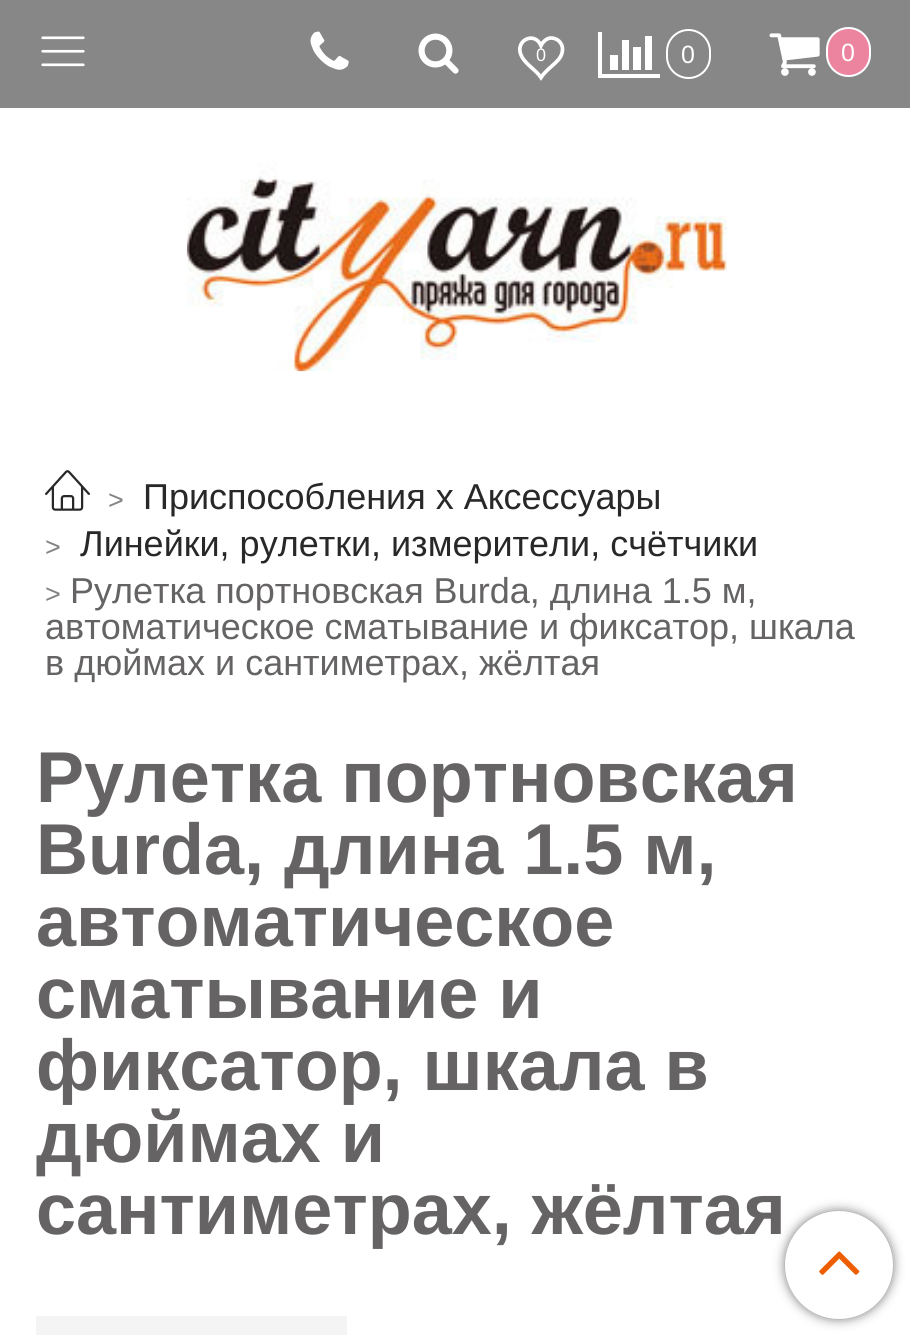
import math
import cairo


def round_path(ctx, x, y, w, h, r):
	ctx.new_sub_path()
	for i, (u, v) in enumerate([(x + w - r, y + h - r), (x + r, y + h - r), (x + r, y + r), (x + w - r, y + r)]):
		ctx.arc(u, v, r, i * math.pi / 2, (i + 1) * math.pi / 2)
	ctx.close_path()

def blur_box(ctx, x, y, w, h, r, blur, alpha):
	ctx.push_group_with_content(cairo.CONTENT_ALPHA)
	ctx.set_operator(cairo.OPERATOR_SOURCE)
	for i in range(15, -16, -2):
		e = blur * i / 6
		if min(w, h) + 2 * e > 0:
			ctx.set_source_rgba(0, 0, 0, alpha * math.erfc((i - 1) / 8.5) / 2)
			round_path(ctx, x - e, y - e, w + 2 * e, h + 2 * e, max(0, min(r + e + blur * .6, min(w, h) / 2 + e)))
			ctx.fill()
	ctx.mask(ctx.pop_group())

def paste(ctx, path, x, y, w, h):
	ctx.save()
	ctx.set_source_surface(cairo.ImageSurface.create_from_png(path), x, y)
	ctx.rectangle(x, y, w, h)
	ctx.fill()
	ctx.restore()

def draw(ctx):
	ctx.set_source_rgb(1, 1, 1)
	ctx.paint()
	ctx.set_source_rgb(0.529, 0.529, 0.529)
	ctx.rectangle(0, 0, 910, 108)
	ctx.fill()
	paste(ctx, 'media/1.png', 41, 36, 44, 31)
	paste(ctx, 'media/2.png', 310, 31, 39, 39)
	paste(ctx, 'media/3.png', 418, 33, 41, 41)
	ctx.new_path()
	ctx.move_to(551, 38)
	ctx.curve_to(547, 38, 543, 41.5, 541, 45.5)
	ctx.curve_to(534, 30, 513, 41.5, 522, 57)
	ctx.curve_to(526.5, 65, 536, 70, 541, 77.5)
	ctx.curve_to(549.5, 65, 562.5, 61.5, 562.5, 49)
	ctx.curve_to(562.5, 43, 557.5, 38, 551, 38)
	ctx.close_path()
	ctx.set_source_rgb(1, 1, 1)
	ctx.set_line_width(3.7)
	ctx.stroke()
	ctx.select_font_face('Liberation Sans')
	ctx.set_font_size(18)
	ctx.move_to(536, 61)
	ctx.show_text('0')
	ctx.new_path()
	ctx.move_to(618, 55)
	ctx.line_to(618, 70)
	ctx.line_to(610, 70)
	ctx.line_to(610, 55)
	ctx.close_path()
	ctx.move_to(629, 40)
	ctx.line_to(629, 70)
	ctx.line_to(622, 70)
	ctx.line_to(622, 40)
	ctx.close_path()
	ctx.move_to(660, 74)
	ctx.line_to(660, 78)
	ctx.line_to(598, 78)
	ctx.line_to(598, 32)
	ctx.line_to(602, 32)
	ctx.line_to(602, 74)
	ctx.close_path()
	ctx.move_to(641, 47)
	ctx.line_to(641, 70)
	ctx.line_to(633, 70)
	ctx.line_to(633, 47)
	ctx.close_path()
	ctx.move_to(652, 36)
	ctx.line_to(652, 70)
	ctx.line_to(645, 70)
	ctx.line_to(645, 36)
	ctx.close_path()
	ctx.fill()
	round_path(ctx, 667, 30, 43, 48, 21.5)
	ctx.set_line_width(2)
	ctx.stroke()
	ctx.set_font_size(25)
	ctx.move_to(681, 63)
	ctx.show_text('0')
	paste(ctx, 'media/4.png', 769, 33, 51, 43)
	ctx.set_source_rgb(0.922, 0.514, 0.624)
	round_path(ctx, 827, 28, 43, 48, 21.5)
	ctx.fill_preserve()
	ctx.set_source_rgb(1, 1, 1)
	ctx.stroke()
	ctx.move_to(841, 61)
	ctx.show_text('0')
	paste(ctx, 'media/5.png', 186, 163, 541, 209)
	paste(ctx, 'media/6.png', 45, 470, 45, 41)
	ctx.set_font_size(27)
	ctx.set_source_rgb(0.518, 0.51, 0.51)
	ctx.move_to(108, 509)
	ctx.show_text('>')
	ctx.set_font_size(36)
	ctx.set_source_rgb(0.157, 0.157, 0.157)
	ctx.move_to(143, 509)
	ctx.show_text('Приспособления х Аксессуары')
	ctx.set_font_size(27)
	ctx.set_source_rgb(0.518, 0.51, 0.51)
	ctx.move_to(45, 556)
	ctx.show_text('>')
	ctx.set_font_size(36)
	ctx.set_source_rgb(0.157, 0.157, 0.157)
	ctx.move_to(80, 556)
	ctx.show_text('Линейки, рулетки, измерители, счётчики')
	ctx.set_font_size(27)
	ctx.set_source_rgb(0.518, 0.51, 0.51)
	ctx.move_to(45, 603)
	ctx.show_text('>')
	ctx.set_font_size(36)
	ctx.set_source_rgb(0.396, 0.388, 0.388)
	for x, y, s in [
		(70, 603, 'Рулетка портновская Burda, длина 1.5 м,'),
		(45, 639, 'автоматическое сматывание и фиксатор, шкала'),
		(45, 675, 'в дюймах и сантиметрах, жёлтая'),
	]:
		ctx.move_to(x, y)
		ctx.show_text(s)
	ctx.select_font_face('Liberation Sans', cairo.FONT_SLANT_NORMAL, cairo.FONT_WEIGHT_BOLD)
	ctx.set_font_size(72)
	for x, y, s in [
		(36, 802, 'Рулетка портновская'),
		(36, 874, 'Burda, длина 1.5 м,'),
		(36, 946, 'автоматическое'),
		(36, 1018, 'сматывание и'),
		(36, 1090, 'фиксатор, шкала в'),
		(36, 1162, 'дюймах и'),
		(36, 1234, 'сантиметрах, жёлтая'),
	]:
		ctx.move_to(x, y)
		ctx.show_text(s)
	ctx.set_source_rgb(0.957, 0.957, 0.957)
	ctx.rectangle(36, 1316, 311, 19)
	ctx.fill()
	ctx.set_source_rgb(0.467, 0.467, 0.467)
	blur_box(ctx, 785, 1211, 108, 108, 54, 5.5, 1)
	ctx.set_source_rgb(1, 1, 1)
	ctx.arc(839, 1265, 54, 0, 2 * math.pi)
	ctx.fill()
	paste(ctx, 'media/7.png', 819, 1251, 41, 24)


surface = cairo.ImageSurface(cairo.FORMAT_RGB24, 910, 1335)
ctx = cairo.Context(surface)
options = cairo.FontOptions()
options.set_hint_metrics(cairo.HINT_METRICS_OFF)
options.set_hint_style(cairo.HINT_STYLE_NONE)
ctx.set_font_options(options)
ctx.set_miter_limit(4)
draw(ctx)
surface.write_to_png('image.png')
